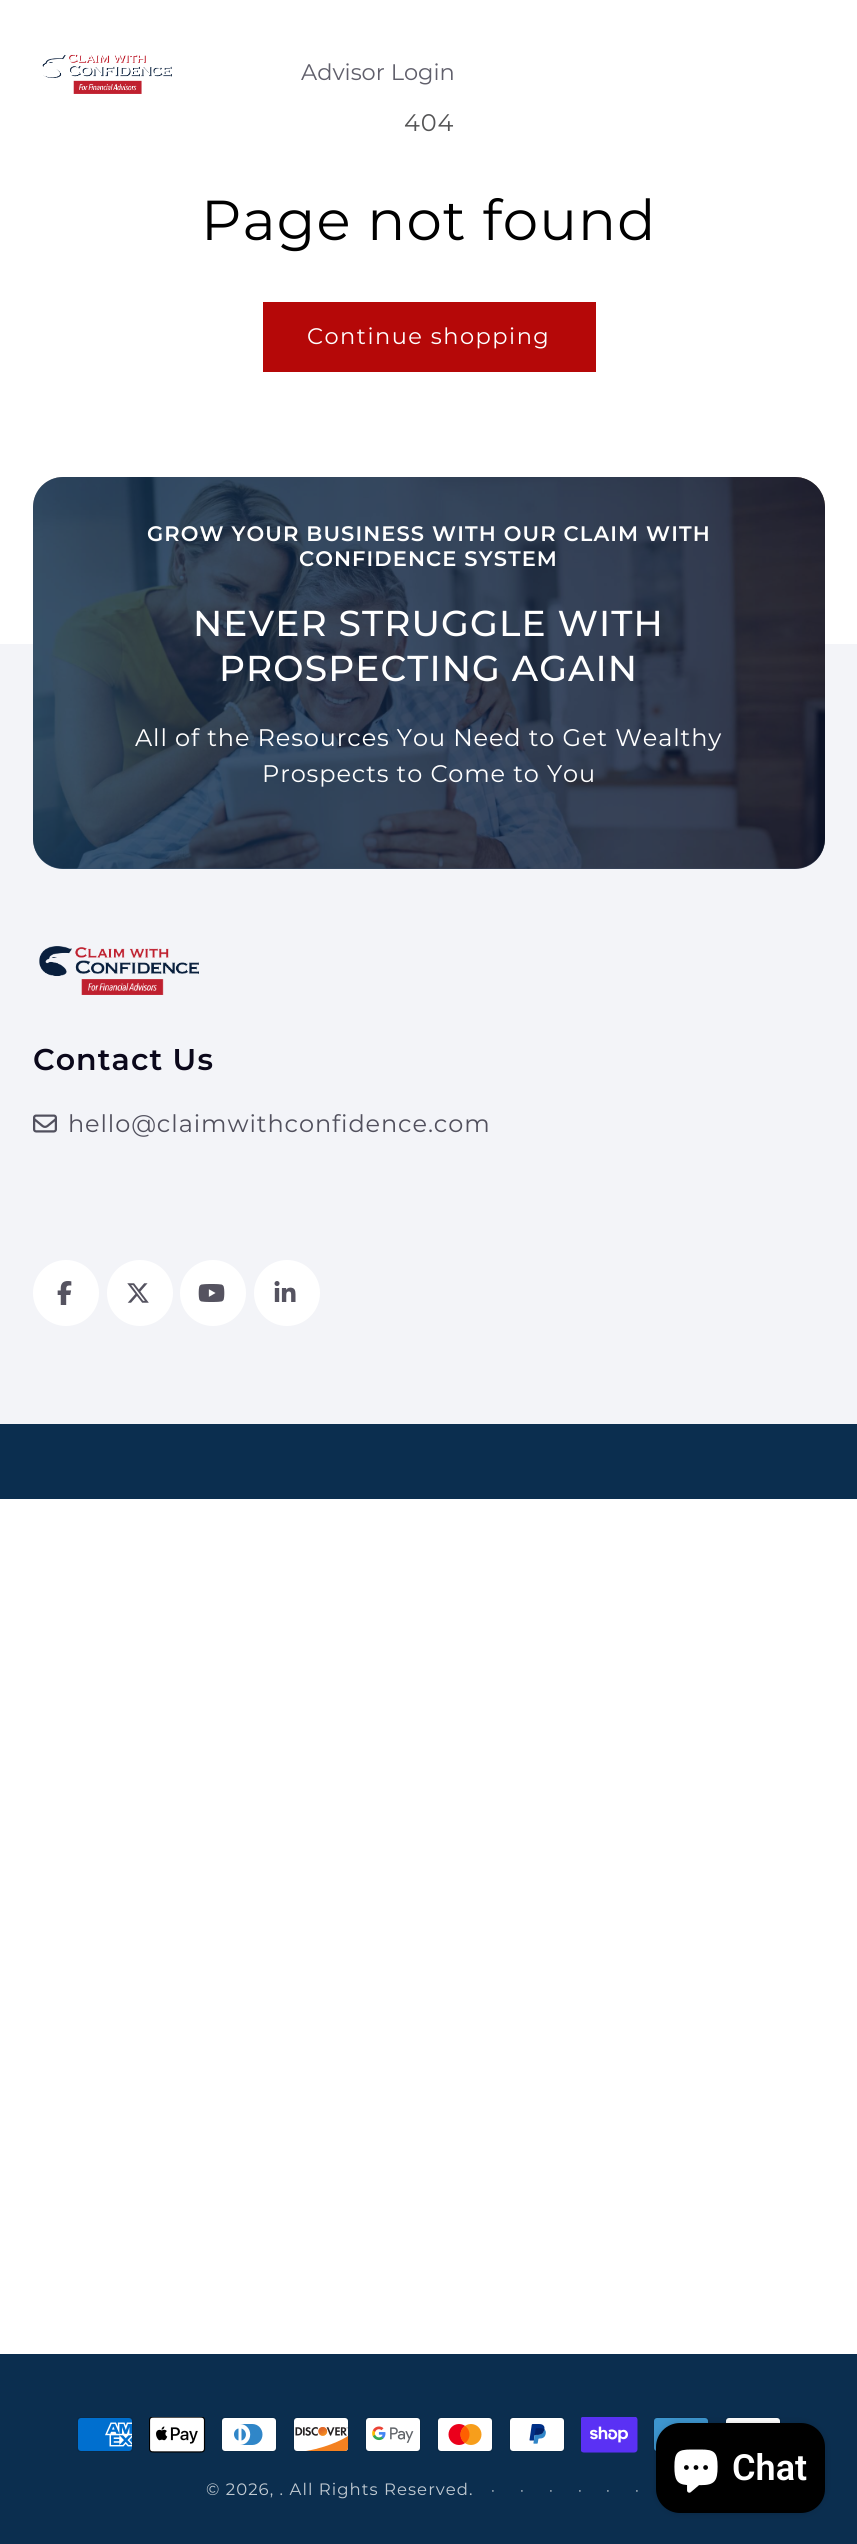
import math
import cairo


def write_spaced(ctx, x, y, s, letter, word):
	ctx.move_to(x, y)
	for ch in s:
		ctx.show_text(ch)
		ctx.rel_move_to(letter + word * (ch == ' '), 0)

def round_path(ctx, x, y, w, h, r):
	ctx.new_sub_path()
	for i, (u, v) in enumerate([(x + w - r, y + h - r), (x + r, y + h - r), (x + r, y + r), (x + w - r, y + r)]):
		ctx.arc(u, v, r, i * math.pi / 2, (i + 1) * math.pi / 2)
	ctx.close_path()

def blur_box(ctx, x, y, w, h, r, blur, alpha):
	ctx.push_group_with_content(cairo.CONTENT_ALPHA)
	ctx.set_operator(cairo.OPERATOR_SOURCE)
	for i in range(15, -16, -2):
		e = blur * i / 6
		if min(w, h) + 2 * e > 0:
			ctx.set_source_rgba(0, 0, 0, alpha * math.erfc((i - 1) / 8.5) / 2)
			round_path(ctx, x - e, y - e, w + 2 * e, h + 2 * e, max(0, min(r + e + blur * .6, min(w, h) / 2 + e)))
			ctx.fill()
	ctx.mask(ctx.pop_group())

def paste(ctx, path, x, y, w, h):
	ctx.save()
	ctx.set_source_surface(cairo.ImageSurface.create_from_png(path), x, y)
	ctx.rectangle(x, y, w, h)
	ctx.fill()
	ctx.restore()

def draw(ctx):
	ctx.set_source_rgb(1, 1, 1)
	ctx.paint()
	paste(ctx, 'media/1.png', 42, 54, 130, 40)
	ctx.select_font_face('Montserrat')
	ctx.set_font_size(22.5)
	ctx.set_source_rgb(0.376, 0.373, 0.42)
	ctx.move_to(301, 80)
	ctx.show_text('Advisor Login')
	ctx.set_font_size(24)
	ctx.set_source_rgb(0.333, 0.333, 0.337)
	write_spaced(ctx, 404, 131, '404', 0.9, 0)
	ctx.set_font_size(56.25)
	ctx.set_source_rgb(0, 0, 0)
	write_spaced(ctx, 201, 240, 'Page not found', 1.1, 0)
	ctx.set_source_rgb(0.71, 0.035, 0.035)
	ctx.rectangle(263, 302, 333, 70)
	ctx.fill()
	ctx.set_font_size(22.5)
	ctx.set_source_rgb(1, 1, 1)
	write_spaced(ctx, 307, 344, 'Continue shopping', 1.5, 0)
	ctx.set_source_rgb(0.953, 0.957, 0.969)
	ctx.rectangle(0, 644, 857, 780)
	ctx.fill()
	paste(ctx, 'media/2.png', 33, 477, 792, 392)
	gradient = cairo.LinearGradient(33, 673, 825, 673)
	gradient.add_color_stop_rgba(0, 0.043, 0.18, 0.31, 0.8)
	gradient.add_color_stop_rgba(1, 0.051, 0.082, 0.18, 0.8)
	ctx.set_source(gradient)
	round_path(ctx, 33, 477, 792, 392, 30)
	ctx.fill()
	ctx.select_font_face('Montserrat SemiBold')
	ctx.set_font_size(21)
	ctx.set_source_rgb(1, 1, 1)
	write_spaced(ctx, 147, 541, 'GROW YOUR BUSINESS WITH OUR CLAIM WITH', 1.1, 0)
	write_spaced(ctx, 299, 566, 'CONFIDENCE SYSTEM', 1.1, 0)
	ctx.select_font_face('Montserrat Medium')
	ctx.set_font_size(36)
	write_spaced(ctx, 193, 636, 'NEVER STRUGGLE WITH', 1.1, 0)
	write_spaced(ctx, 219, 681, 'PROSPECTING AGAIN', 1.1, 0)
	ctx.select_font_face('Montserrat')
	ctx.set_font_size(24)
	write_spaced(ctx, 135, 746, 'All of the Resources You Need to Get Wealthy', 0.9, 0)
	write_spaced(ctx, 262, 782, 'Prospects to Come to You', 0.9, 0)
	paste(ctx, 'media/3.png', 39, 946, 160, 49)
	ctx.select_font_face('Montserrat SemiBold')
	ctx.set_font_size(30)
	ctx.set_source_rgb(0.043, 0.035, 0.106)
	write_spaced(ctx, 33, 1070, 'Contact Us', 1.1, 0)
	paste(ctx, 'media/4.png', 33, 1114, 24, 19)
	ctx.select_font_face('Montserrat')
	ctx.set_font_size(24)
	ctx.set_source_rgb(0.318, 0.314, 0.365)
	write_spaced(ctx, 68, 1132, 'hello@claimwithconfidence.com', 0.9, 0)
	ctx.set_source_rgb(1, 1, 1)
	ctx.new_path()
	ctx.arc(66, 1293, 33, 0, 2 * math.pi)
	ctx.fill()
	paste(ctx, 'media/5.png', 57, 1281, 15, 24)
	ctx.arc(140, 1293, 33, 0, 2 * math.pi)
	ctx.fill()
	paste(ctx, 'media/6.png', 127, 1283, 22, 20)
	ctx.arc(213, 1293, 33, 0, 2 * math.pi)
	ctx.fill()
	paste(ctx, 'media/7.png', 198, 1284, 27, 18)
	ctx.arc(287, 1293, 33, 0, 2 * math.pi)
	ctx.fill()
	paste(ctx, 'media/8.png', 274, 1281, 22, 21)
	ctx.set_source_rgb(0.043, 0.18, 0.31)
	ctx.rectangle(0, 1424, 857, 75)
	ctx.fill()
	ctx.rectangle(0, 2354, 857, 190)
	ctx.fill()
	paste(ctx, 'media/18.png', 653, 2417, 57, 35)
	paste(ctx, 'media/19.png', 725, 2417, 56, 6)
	ctx.set_source_rgb(0, 0, 0)
	blur_box(ctx, 656, 2423, 169, 90, 24, 4, 0.15)
	ctx.set_source_rgb(0, 0, 0)
	round_path(ctx, 656, 2423, 169, 90, 24)
	ctx.fill()
	paste(ctx, 'media/9.png', 674, 2449, 44, 44)
	ctx.select_font_face('Roboto SemiBold')
	ctx.set_font_size(36)
	ctx.set_source_rgb(1, 1, 1)
	ctx.move_to(732, 2480)
	ctx.show_text('Chat')
	paste(ctx, 'media/10.png', 77, 2417, 56, 35)
	paste(ctx, 'media/11.png', 149, 2417, 57, 36)
	paste(ctx, 'media/12.png', 221, 2417, 56, 35)
	paste(ctx, 'media/13.png', 293, 2417, 56, 35)
	paste(ctx, 'media/14.png', 365, 2417, 56, 35)
	paste(ctx, 'media/15.png', 437, 2417, 56, 35)
	paste(ctx, 'media/16.png', 509, 2417, 56, 35)
	paste(ctx, 'media/17.png', 581, 2417, 57, 36)
	ctx.select_font_face('Montserrat')
	ctx.set_font_size(16.5)
	ctx.set_source_rgb(0.761, 0.796, 0.827)
	write_spaced(ctx, 206, 2495, '© 2026, . All Rights Reserved.', 1.05, 0)
	ctx.set_font_size(15)
	for x, y, s in [
		(491, 2495, '·'),
		(520, 2495, '·'),
		(549, 2495, '·'),
		(578, 2495, '·'),
		(606, 2495, '·'),
		(635, 2495, '·'),
	]:
		write_spaced(ctx, x, y, s, 1.05, 0)


surface = cairo.ImageSurface(cairo.FORMAT_RGB24, 857, 2544)
ctx = cairo.Context(surface)
options = cairo.FontOptions()
options.set_hint_metrics(cairo.HINT_METRICS_OFF)
options.set_hint_style(cairo.HINT_STYLE_NONE)
ctx.set_font_options(options)
ctx.set_miter_limit(4)
draw(ctx)
surface.write_to_png('image.png')
